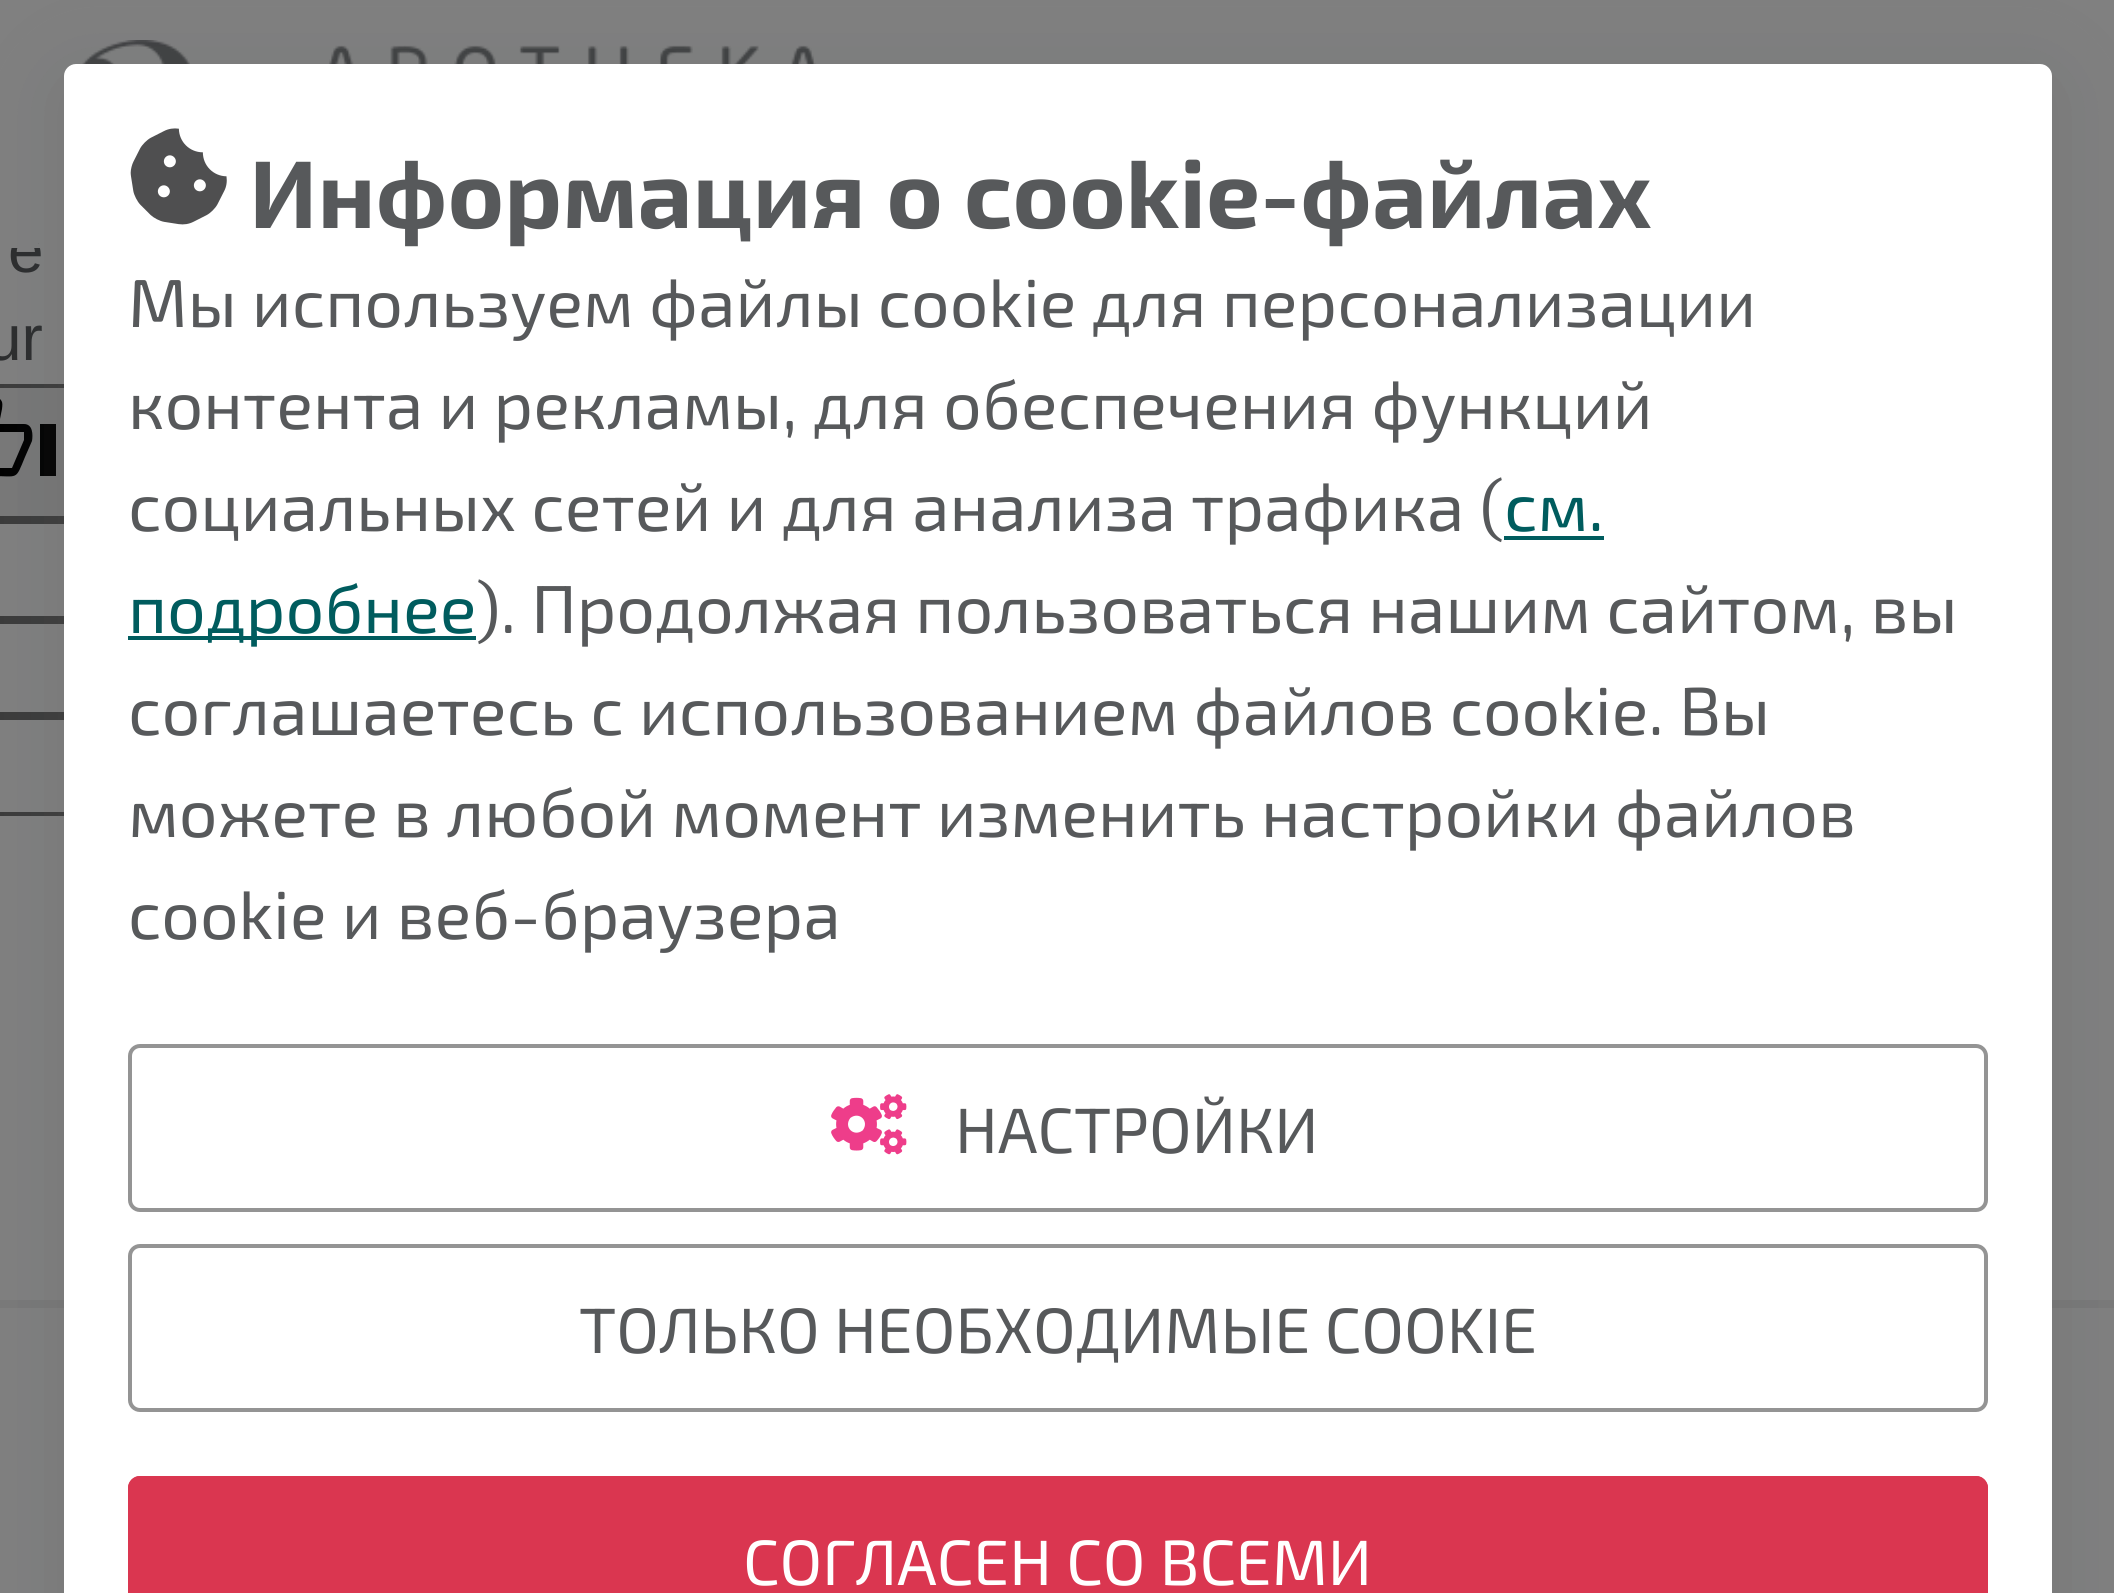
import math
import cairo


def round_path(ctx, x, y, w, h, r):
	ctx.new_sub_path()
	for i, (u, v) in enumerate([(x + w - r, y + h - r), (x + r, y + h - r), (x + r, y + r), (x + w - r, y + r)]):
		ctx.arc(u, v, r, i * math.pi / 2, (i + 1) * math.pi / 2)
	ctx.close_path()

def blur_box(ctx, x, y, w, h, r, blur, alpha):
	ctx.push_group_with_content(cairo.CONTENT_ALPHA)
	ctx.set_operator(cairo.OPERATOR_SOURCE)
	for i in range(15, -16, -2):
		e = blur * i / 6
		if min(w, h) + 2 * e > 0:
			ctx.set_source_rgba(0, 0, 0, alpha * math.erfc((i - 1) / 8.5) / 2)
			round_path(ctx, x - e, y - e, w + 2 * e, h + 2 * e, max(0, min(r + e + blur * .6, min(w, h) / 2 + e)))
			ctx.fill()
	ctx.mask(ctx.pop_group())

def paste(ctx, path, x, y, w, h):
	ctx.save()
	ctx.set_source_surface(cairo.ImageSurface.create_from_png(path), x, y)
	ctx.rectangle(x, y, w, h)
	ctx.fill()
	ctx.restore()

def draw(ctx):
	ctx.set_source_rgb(0.502, 0.502, 0.502)
	ctx.paint()
	ctx.select_font_face('Liberation Sans')
	ctx.set_font_size(64)
	ctx.set_source_rgb(0.173, 0.176, 0.18)
	ctx.move_to(8, 272)
	ctx.show_text('e')
	ctx.set_source_rgb(0.502, 0.502, 0.502)
	ctx.rectangle(11, 244, 29, 4)
	ctx.fill()
	paste(ctx, 'media/1.png', 82, 40, 734, 24)
	ctx.set_source_rgb(0.475, 0.475, 0.475)
	ctx.rectangle(0, 1300, 2114, 8)
	ctx.fill()
	ctx.set_source_rgb(0.502, 0.502, 0.502)
	ctx.rectangle(13, 237, 25, 7)
	ctx.fill()
	ctx.set_source_rgb(0.173, 0.176, 0.18)
	ctx.move_to(-14, 360)
	ctx.show_text('ur')
	ctx.set_source_rgb(0.471, 0.471, 0.471)
	ctx.rectangle(0, 388, 64, 128)
	ctx.fill()
	ctx.rectangle(-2, 386, 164, 132)
	ctx.set_source_rgb(0.231, 0.231, 0.231)
	ctx.set_line_width(4)
	ctx.stroke()
	ctx.set_source_rgb(0, 0, 0)
	ctx.new_path()
	ctx.move_to(24, 424)
	ctx.line_to(-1, 424)
	ctx.line_to(2, 409)
	ctx.curve_to(3, 401, 2, 401, -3, 396)
	ctx.line_to(-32, 424)
	ctx.line_to(-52, 424)
	ctx.line_to(-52, 476)
	ctx.line_to(-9, 476)
	ctx.curve_to(19, 476, 15, 481, 25, 457)
	ctx.line_to(32, 441)
	ctx.curve_to(33, 435, 33, 424, 24, 424)
	ctx.close_path()
	ctx.move_to(-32, 468)
	ctx.line_to(-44, 468)
	ctx.line_to(-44, 432)
	ctx.line_to(-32, 432)
	ctx.close_path()
	ctx.move_to(24, 440)
	ctx.line_to(12, 468)
	ctx.line_to(-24, 468)
	ctx.line_to(-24, 428)
	ctx.line_to(-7, 411)
	ctx.line_to(-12, 432)
	ctx.line_to(24, 432)
	ctx.close_path()
	ctx.fill()
	ctx.new_path()
	ctx.move_to(120, 424)
	ctx.line_to(95, 424)
	ctx.line_to(98, 409)
	ctx.curve_to(99, 401, 98, 401, 93, 396)
	ctx.line_to(64, 424)
	ctx.line_to(64, 476)
	ctx.line_to(108, 476)
	ctx.curve_to(111, 476, 114, 474, 115, 471)
	ctx.line_to(127, 443)
	ctx.line_to(128, 440)
	ctx.line_to(128, 432)
	ctx.curve_to(128, 428, 124, 424, 120, 424)
	ctx.close_path()
	ctx.move_to(56, 424)
	ctx.line_to(40, 424)
	ctx.line_to(40, 476)
	ctx.line_to(56, 476)
	ctx.close_path()
	ctx.fill()
	ctx.rectangle(-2, 522, 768, 96)
	ctx.set_source_rgb(0.231, 0.231, 0.231)
	ctx.stroke()
	ctx.rectangle(-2, 622, 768, 92)
	ctx.stroke()
	ctx.rectangle(-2, 718, 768, 96)
	ctx.stroke()
	ctx.set_source_rgb(0.341, 0.349, 0.357)
	blur_box(ctx, 64, 80, 1988, 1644, 12, 40, 0.25)
	ctx.set_source_rgb(1, 1, 1)
	ctx.new_path()
	ctx.move_to(76, 64)
	ctx.line_to(2040, 64)
	ctx.curve_to(2046.5, 64, 2052, 69.5, 2052, 76)
	ctx.line_to(2052, 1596)
	ctx.line_to(64, 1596)
	ctx.line_to(64, 76)
	ctx.curve_to(64, 69.5, 69.5, 64, 76, 64)
	ctx.close_path()
	ctx.fill()
	paste(ctx, 'media/2.png', 130, 128, 97, 97)
	ctx.select_font_face('Exo 2', cairo.FONT_SLANT_NORMAL, cairo.FONT_WEIGHT_BOLD)
	ctx.set_font_size(96)
	ctx.set_source_rgb(0.341, 0.349, 0.357)
	ctx.move_to(249, 228)
	ctx.show_text('Информация о cookie-файлах')
	ctx.select_font_face('Exo 2')
	ctx.set_font_size(68)
	for x, y, s in [
		(128, 327, 'Мы используем файлы cookie для персонализации'),
		(128, 429, 'контента и рекламы, для обеспечения функций'),
		(128, 531, 'социальных сетей и для анализа трафика ('),
	]:
		ctx.move_to(x, y)
		ctx.show_text(s)
	ctx.set_source_rgb(0, 0.361, 0.369)
	ctx.move_to(1504, 531)
	ctx.show_text('см.')
	ctx.rectangle(1504, 536, 100, 4)
	ctx.fill()
	ctx.rectangle(128, 636, 348, 4)
	ctx.fill()
	ctx.move_to(128, 633)
	ctx.show_text('подробнее')
	ctx.set_source_rgb(0.341, 0.349, 0.357)
	for x, y, s in [
		(476, 633, '). Продолжая пользоваться нашим сайтом, вы'),
		(128, 735, 'соглашаетесь с использованием файлов cookie. Вы'),
		(128, 837, 'можете в любой момент изменить настройки файлов'),
		(128, 939, 'cookie и веб-браузера'),
	]:
		ctx.move_to(x, y)
		ctx.show_text(s)
	round_path(ctx, 130, 1046, 1856, 164, 10)
	ctx.set_source_rgb(0.58, 0.58, 0.58)
	ctx.stroke()
	paste(ctx, 'media/3.png', 831, 1094, 76, 61)
	ctx.set_font_size(64)
	ctx.set_source_rgb(0.341, 0.349, 0.357)
	ctx.move_to(955, 1153)
	ctx.show_text('НАСТРОЙКИ')
	round_path(ctx, 130, 1246, 1856, 164, 10)
	ctx.set_source_rgb(0.58, 0.58, 0.58)
	ctx.stroke()
	ctx.set_source_rgb(0.341, 0.349, 0.357)
	ctx.move_to(579, 1353)
	ctx.show_text('ТОЛЬКО НЕОБХОДИМЫЕ COOKIE')
	ctx.set_source_rgb(0.855, 0.212, 0.314)
	ctx.new_path()
	ctx.move_to(140, 1476)
	ctx.line_to(1976, 1476)
	ctx.curve_to(1982.5, 1476, 1988, 1481.5, 1988, 1488)
	ctx.line_to(1988, 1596)
	ctx.line_to(128, 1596)
	ctx.line_to(128, 1488)
	ctx.curve_to(128, 1481.5, 133.5, 1476, 140, 1476)
	ctx.close_path()
	ctx.fill()
	round_path(ctx, 130, 1478, 1856, 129, 10)
	ctx.stroke()
	ctx.set_source_rgb(1, 1, 1)
	ctx.move_to(743, 1585)
	ctx.show_text('СОГЛАСЕН СО ВСЕМИ')


surface = cairo.ImageSurface(cairo.FORMAT_RGB24, 2114, 1593)
ctx = cairo.Context(surface)
options = cairo.FontOptions()
options.set_hint_metrics(cairo.HINT_METRICS_OFF)
options.set_hint_style(cairo.HINT_STYLE_NONE)
ctx.set_font_options(options)
ctx.set_miter_limit(4)
draw(ctx)
surface.write_to_png('image.png')
